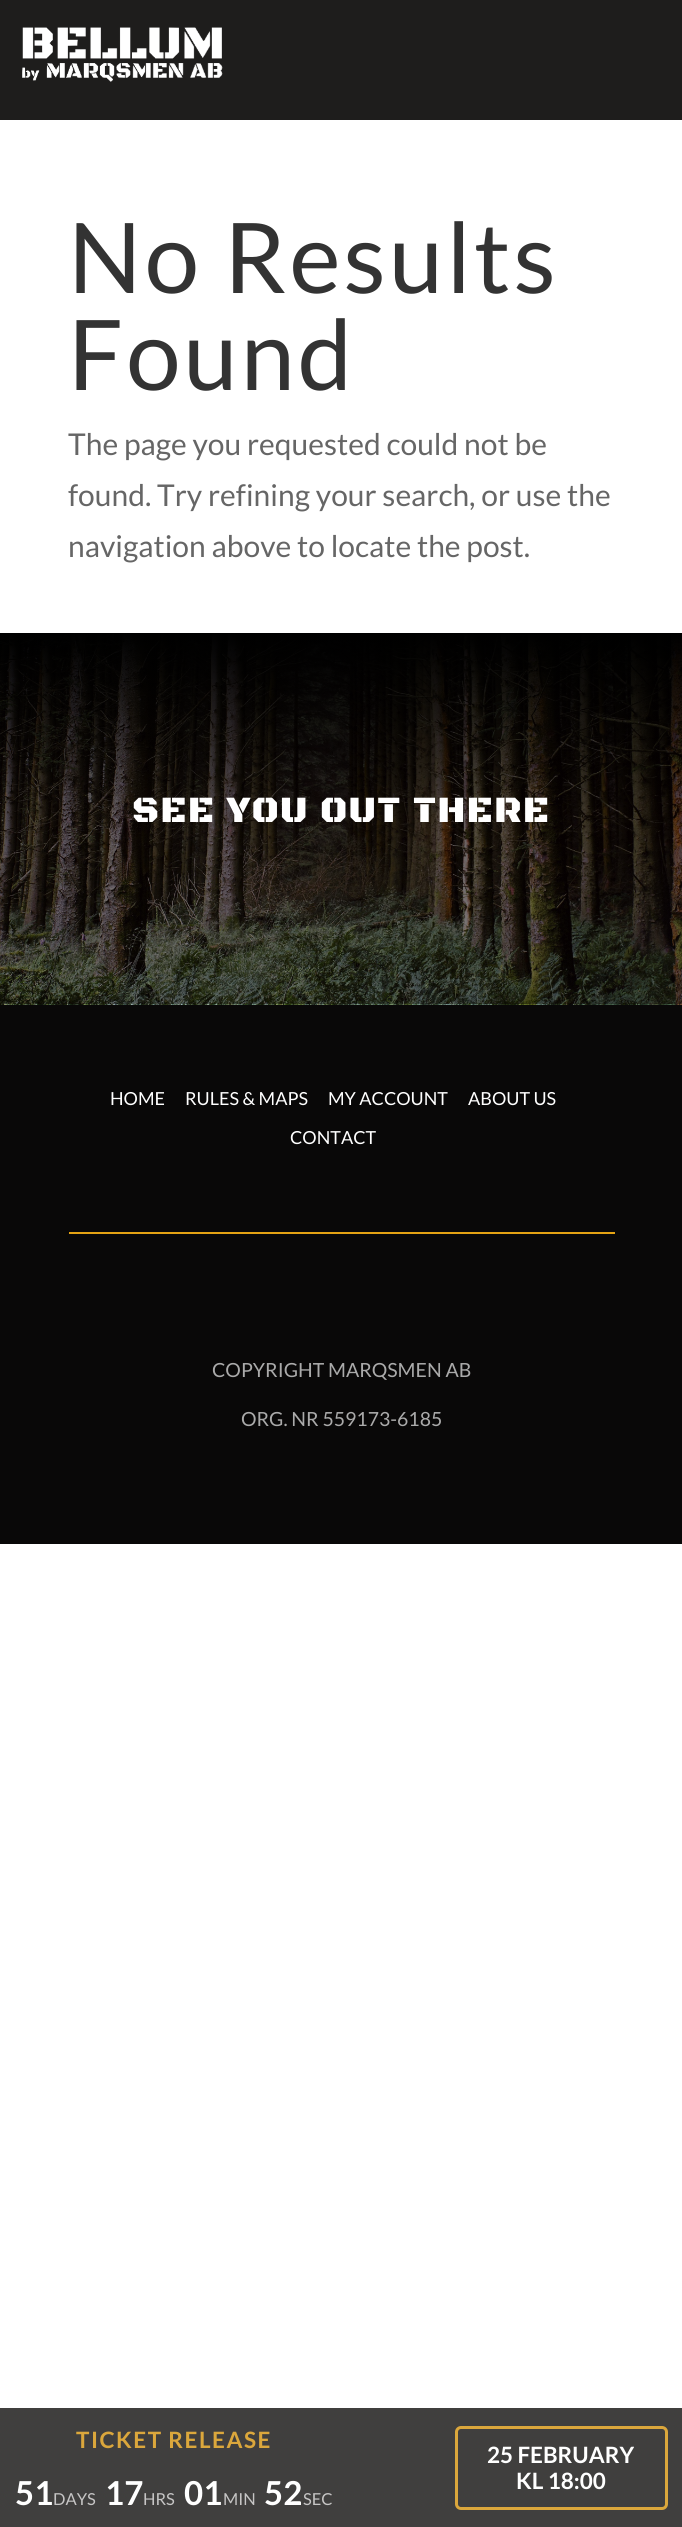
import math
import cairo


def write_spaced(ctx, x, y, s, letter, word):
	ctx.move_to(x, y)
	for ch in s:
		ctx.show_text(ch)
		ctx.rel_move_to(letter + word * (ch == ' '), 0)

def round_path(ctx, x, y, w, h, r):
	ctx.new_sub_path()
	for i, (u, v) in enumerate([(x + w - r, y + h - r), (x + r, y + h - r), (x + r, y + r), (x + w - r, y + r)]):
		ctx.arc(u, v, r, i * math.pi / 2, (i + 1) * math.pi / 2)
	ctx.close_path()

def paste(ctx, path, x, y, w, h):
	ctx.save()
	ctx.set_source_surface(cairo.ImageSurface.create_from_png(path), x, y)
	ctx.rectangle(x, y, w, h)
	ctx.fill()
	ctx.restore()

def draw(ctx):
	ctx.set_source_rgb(1, 1, 1)
	ctx.paint()
	ctx.set_source_rgb(0.118, 0.114, 0.11)
	ctx.rectangle(0, 0, 682, 120)
	ctx.fill()
	paste(ctx, 'media/1.png', 22, 27, 201, 55)
	ctx.select_font_face('Lato')
	ctx.set_font_size(97.5)
	ctx.set_source_rgb(0.2, 0.2, 0.2)
	write_spaced(ctx, 68, 293, 'No Results', 3, 0)
	write_spaced(ctx, 68, 390, 'Found', 3, 0)
	ctx.set_font_size(30)
	ctx.set_source_rgb(0.4, 0.4, 0.4)
	for x, y, s in [
		(68, 455, 'The page you requested could not be'),
		(68, 506, 'found. Try refining your search, or use the'),
		(68, 557, 'navigation above to locate the post.'),
	]:
		ctx.move_to(x, y)
		ctx.show_text(s)
	paste(ctx, 'media/2.png', 0, 633, 682, 372)
	ctx.select_font_face('Black Ops One Black')
	ctx.set_font_size(37.5)
	ctx.set_source_rgb(1, 1, 1)
	write_spaced(ctx, 132, 822, 'SEE YOU OUT THERE', 1.5, 0)
	ctx.set_source_rgb(0.039, 0.035, 0.035)
	ctx.rectangle(0, 1005, 682, 539)
	ctx.fill()
	ctx.select_font_face('Lato')
	ctx.set_font_size(18)
	ctx.set_source_rgb(1, 1, 1)
	for x, y, s in [
		(110, 1105, 'HOME'),
		(185, 1105, 'RULES & MAPS'),
		(328, 1105, 'MY ACCOUNT'),
		(468, 1105, 'ABOUT US'),
		(290, 1144, 'CONTACT'),
	]:
		ctx.move_to(x, y)
		ctx.show_text(s)
	ctx.set_source_rgb(0.898, 0.639, 0.082)
	ctx.rectangle(69, 1232, 546, 2)
	ctx.fill()
	ctx.set_font_size(19.5)
	ctx.set_source_rgb(0.667, 0.667, 0.667)
	ctx.move_to(212, 1377)
	ctx.show_text('COPYRIGHT MARQSMEN AB')
	ctx.move_to(241, 1426)
	ctx.show_text('ORG. NR 559173-6185')
	ctx.set_source_rgb(0.251, 0.247, 0.243)
	ctx.rectangle(0, 2408, 682, 119)
	ctx.fill()
	ctx.select_font_face('Lato', cairo.FONT_SLANT_NORMAL, cairo.FONT_WEIGHT_BOLD)
	ctx.set_font_size(22.5)
	ctx.set_source_rgb(0.859, 0.655, 0.235)
	write_spaced(ctx, 76, 2448, 'TICKET RELEASE', 1.5, 0)
	ctx.set_font_size(33)
	ctx.set_source_rgb(1, 1, 1)
	ctx.move_to(15, 2505)
	ctx.show_text('51')
	ctx.select_font_face('Lato')
	ctx.set_font_size(16.5)
	ctx.set_source_rgb(0.776, 0.773, 0.773)
	ctx.move_to(53, 2505)
	ctx.show_text('DAYS')
	ctx.select_font_face('Lato', cairo.FONT_SLANT_NORMAL, cairo.FONT_WEIGHT_BOLD)
	ctx.set_font_size(33)
	ctx.set_source_rgb(1, 1, 1)
	ctx.move_to(105, 2505)
	ctx.show_text('17')
	ctx.select_font_face('Lato')
	ctx.set_font_size(16.5)
	ctx.set_source_rgb(0.776, 0.773, 0.773)
	ctx.move_to(143, 2505)
	ctx.show_text('HRS')
	ctx.select_font_face('Lato', cairo.FONT_SLANT_NORMAL, cairo.FONT_WEIGHT_BOLD)
	ctx.set_font_size(33)
	ctx.set_source_rgb(1, 1, 1)
	ctx.move_to(184, 2505)
	ctx.show_text('01')
	ctx.select_font_face('Lato')
	ctx.set_font_size(16.5)
	ctx.set_source_rgb(0.776, 0.773, 0.773)
	ctx.move_to(223, 2505)
	ctx.show_text('MIN')
	ctx.select_font_face('Lato', cairo.FONT_SLANT_NORMAL, cairo.FONT_WEIGHT_BOLD)
	ctx.set_font_size(33)
	ctx.set_source_rgb(1, 1, 1)
	ctx.move_to(264, 2505)
	ctx.show_text('52')
	ctx.select_font_face('Lato')
	ctx.set_font_size(16.5)
	ctx.set_source_rgb(0.776, 0.773, 0.773)
	ctx.move_to(303, 2505)
	ctx.show_text('SEC')
	round_path(ctx, 456.5, 2427.5, 210, 81, 4.5)
	ctx.set_source_rgb(0.859, 0.655, 0.235)
	ctx.set_line_width(3)
	ctx.stroke()
	ctx.select_font_face('Lato', cairo.FONT_SLANT_NORMAL, cairo.FONT_WEIGHT_BOLD)
	ctx.set_font_size(22.5)
	ctx.set_source_rgb(1, 1, 1)
	ctx.move_to(487, 2463)
	ctx.show_text('25 FEBRUARY')
	ctx.move_to(516, 2489)
	ctx.show_text('KL 18:00')


surface = cairo.ImageSurface(cairo.FORMAT_RGB24, 682, 2527)
ctx = cairo.Context(surface)
options = cairo.FontOptions()
options.set_hint_metrics(cairo.HINT_METRICS_OFF)
options.set_hint_style(cairo.HINT_STYLE_NONE)
ctx.set_font_options(options)
ctx.set_miter_limit(4)
draw(ctx)
surface.write_to_png('image.png')
